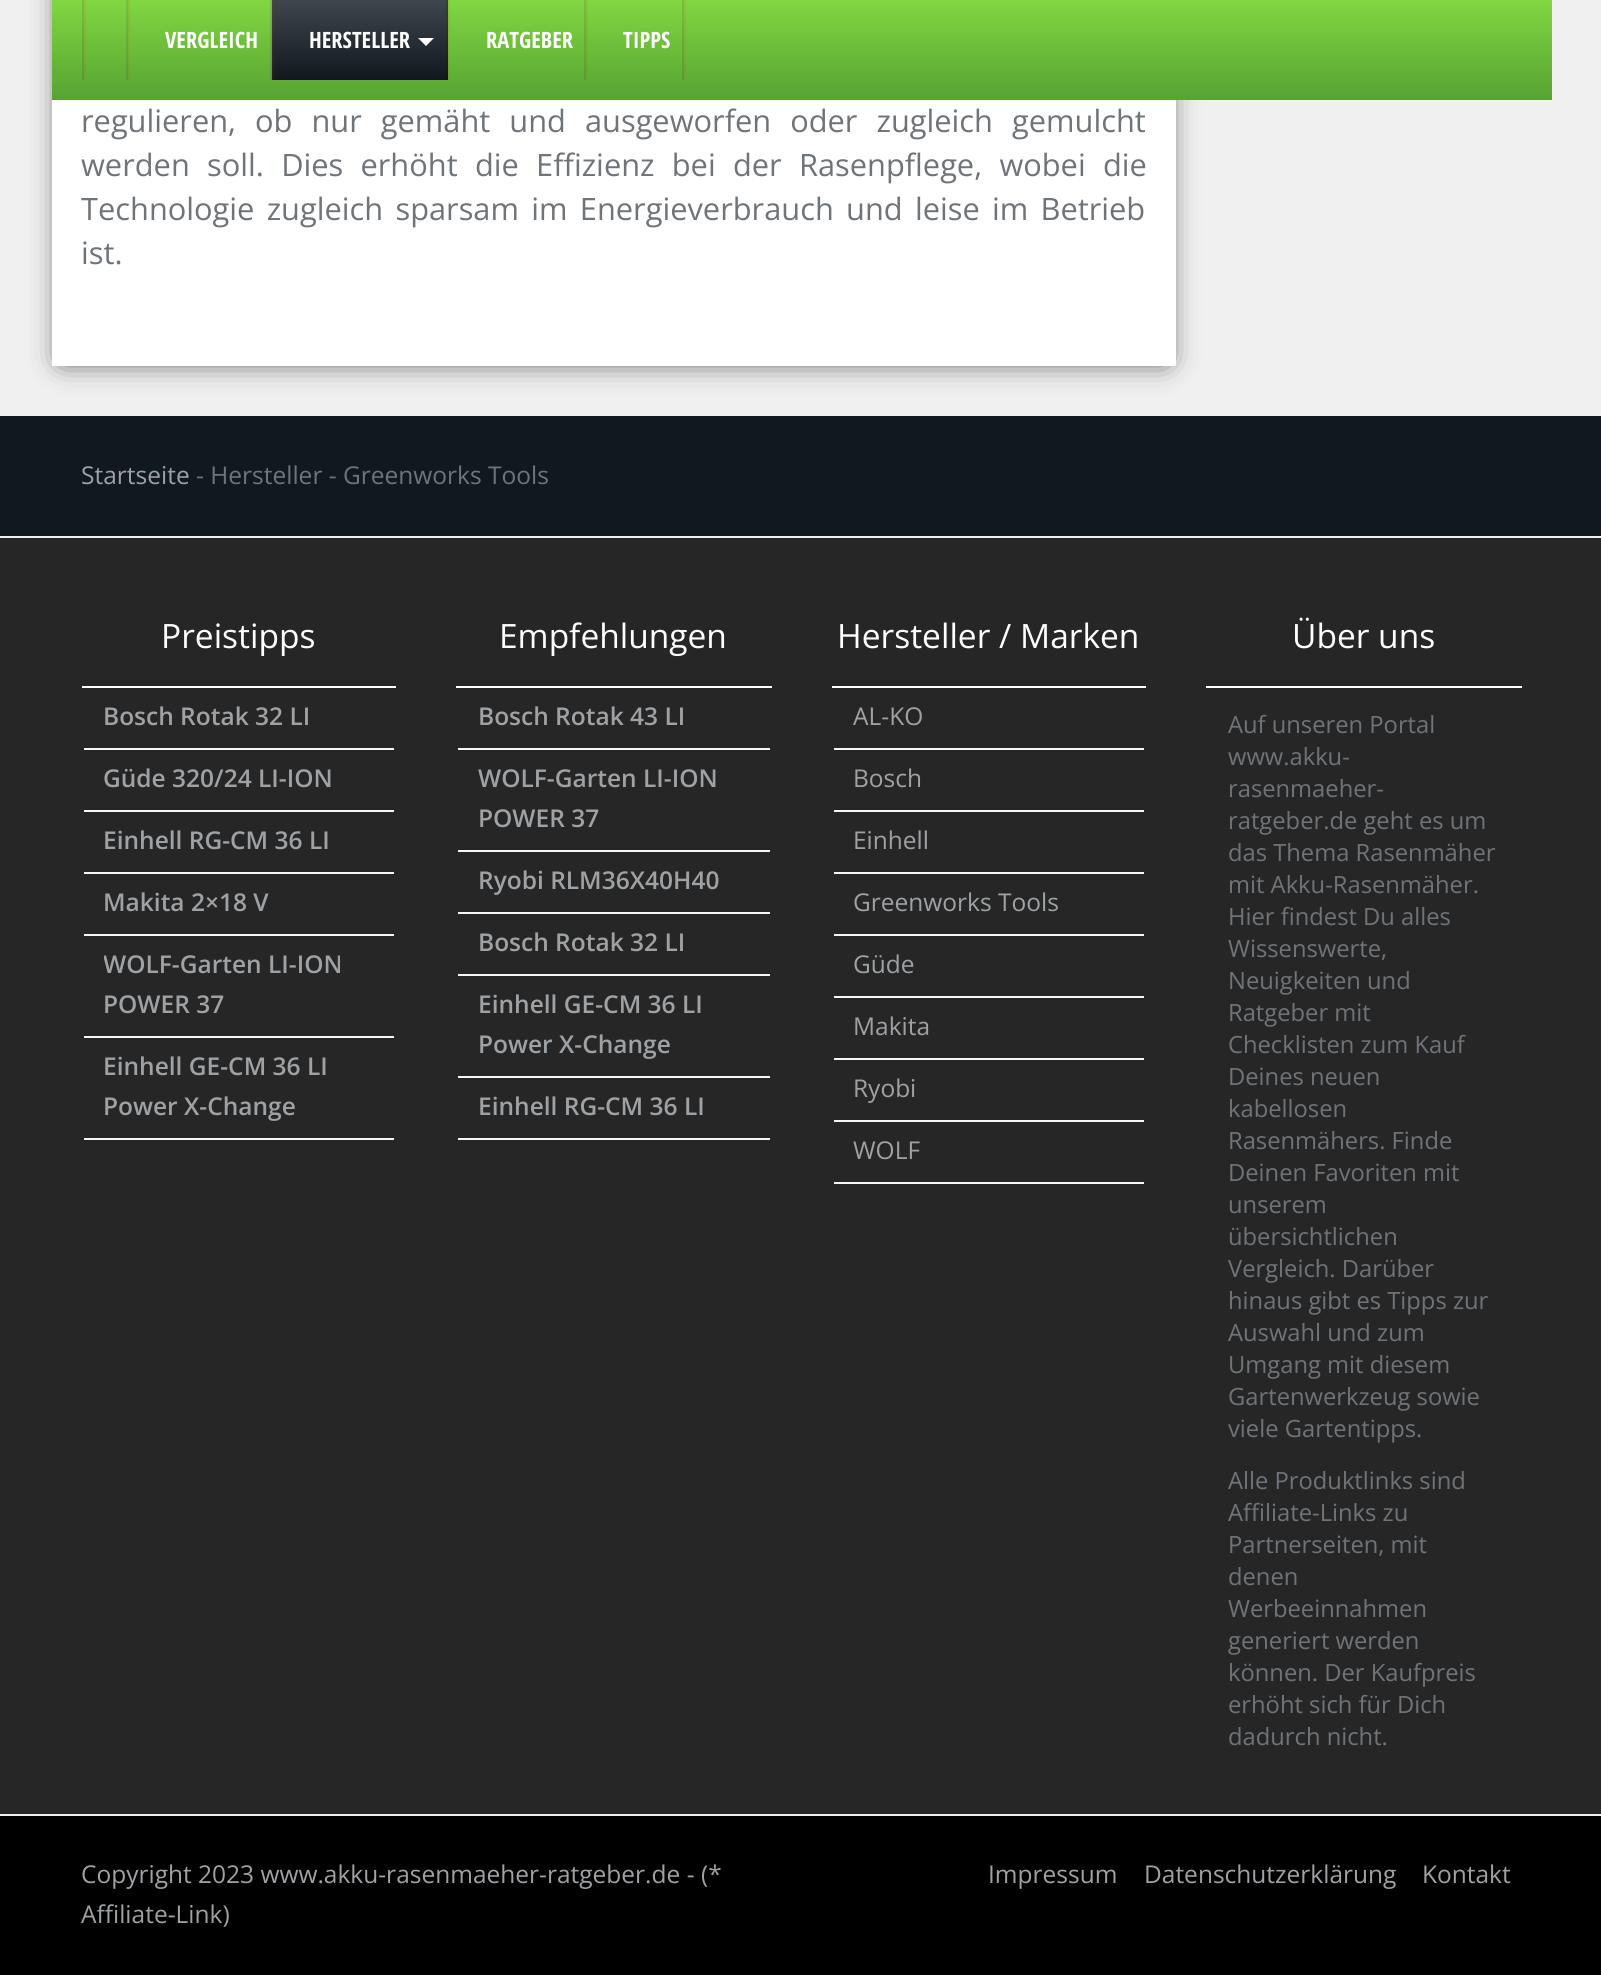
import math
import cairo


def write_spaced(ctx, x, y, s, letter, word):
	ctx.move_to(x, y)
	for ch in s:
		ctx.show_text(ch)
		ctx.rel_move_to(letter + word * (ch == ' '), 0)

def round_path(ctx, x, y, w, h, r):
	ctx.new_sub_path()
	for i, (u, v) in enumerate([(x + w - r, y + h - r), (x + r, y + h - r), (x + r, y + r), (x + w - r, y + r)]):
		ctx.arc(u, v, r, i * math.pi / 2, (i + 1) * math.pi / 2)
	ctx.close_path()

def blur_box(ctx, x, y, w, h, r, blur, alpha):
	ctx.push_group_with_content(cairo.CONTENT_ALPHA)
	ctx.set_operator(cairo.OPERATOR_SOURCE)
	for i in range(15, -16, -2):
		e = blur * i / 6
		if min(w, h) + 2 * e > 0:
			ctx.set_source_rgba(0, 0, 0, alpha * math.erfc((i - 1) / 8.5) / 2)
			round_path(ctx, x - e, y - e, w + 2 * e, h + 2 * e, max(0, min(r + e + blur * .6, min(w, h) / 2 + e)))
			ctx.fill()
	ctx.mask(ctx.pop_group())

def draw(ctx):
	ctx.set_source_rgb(0.941, 0.941, 0.941)
	ctx.paint()
	ctx.set_source_rgb(0, 0, 0)
	blur_box(ctx, 62, -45, 1104, 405, 0, 15, 0.75)
	gradient = cairo.LinearGradient(802, 0, 802, 100)
	gradient.add_color_stop_rgba(0, 0.506, 0.843, 0.259, 1)
	gradient.add_color_stop_rgba(1, 0.337, 0.639, 0.196, 1)
	ctx.set_source(gradient)
	ctx.rectangle(52, 0, 1500, 100)
	ctx.fill()
	ctx.set_source_rgba(1, 0.129, 0.129, 0.1)
	ctx.rectangle(684, 0, 2, 80)
	ctx.fill()
	ctx.set_source_rgba(0, 0, 0, 0.1)
	ctx.rectangle(82, 0, 2, 80)
	ctx.fill()
	ctx.rectangle(126, 0, 2, 80)
	ctx.fill()
	ctx.set_source_rgba(1, 0.129, 0.129, 0.1)
	ctx.rectangle(84, 0, 2, 80)
	ctx.fill()
	ctx.set_source_rgba(0, 0, 0, 0.1)
	ctx.rectangle(270, 0, 2, 80)
	ctx.fill()
	ctx.set_source_rgba(1, 0.129, 0.129, 0.1)
	ctx.rectangle(128, 0, 2, 80)
	ctx.fill()
	ctx.select_font_face('Open Sans Condensed', cairo.FONT_SLANT_NORMAL, cairo.FONT_WEIGHT_BOLD)
	ctx.set_font_size(22.5)
	ctx.set_source_rgb(1, 1, 1)
	ctx.move_to(165, 48)
	ctx.show_text('VERGLEICH')
	gradient = cairo.LinearGradient(360, 0, 360, 80)
	gradient.add_color_stop_rgba(0, 0.247, 0.275, 0.298, 1)
	gradient.add_color_stop_rgba(1, 0.063, 0.094, 0.125, 1)
	ctx.set_source(gradient)
	ctx.rectangle(272, 0, 176, 80)
	ctx.fill()
	ctx.set_source_rgba(0, 0, 0, 0.1)
	ctx.rectangle(446, 0, 2, 80)
	ctx.fill()
	ctx.set_source_rgba(1, 0.129, 0.129, 0.1)
	ctx.rectangle(272, 0, 2, 80)
	ctx.fill()
	ctx.set_source_rgb(1, 1, 1)
	ctx.move_to(309, 48)
	ctx.show_text('HERSTELLER')
	ctx.new_path()
	ctx.move_to(418, 38)
	ctx.line_to(434, 38)
	ctx.line_to(426, 46)
	ctx.close_path()
	ctx.fill()
	ctx.set_source_rgba(0, 0, 0, 0.1)
	ctx.rectangle(584, 0, 2, 80)
	ctx.fill()
	ctx.set_source_rgba(1, 0.129, 0.129, 0.1)
	ctx.rectangle(448, 0, 2, 80)
	ctx.fill()
	ctx.set_source_rgb(1, 1, 1)
	ctx.move_to(486, 48)
	ctx.show_text('RATGEBER')
	ctx.set_source_rgba(0, 0, 0, 0.1)
	ctx.rectangle(682, 0, 2, 80)
	ctx.fill()
	ctx.set_source_rgba(1, 0.129, 0.129, 0.1)
	ctx.rectangle(586, 0, 2, 80)
	ctx.fill()
	ctx.set_source_rgb(1, 1, 1)
	ctx.move_to(623, 48)
	ctx.show_text('TIPPS')
	ctx.rectangle(52, 100, 1124, 266)
	ctx.fill()
	ctx.select_font_face('Open Sans')
	ctx.set_font_size(30.8)
	ctx.set_source_rgb(0.435, 0.455, 0.475)
	write_spaced(ctx, 81, 132, 'regulieren, ob nur gemäht und ausgeworfen oder zugleich gemulcht', 0, 11)
	write_spaced(ctx, 81, 176, 'werden soll. Dies erhöht die Effizienz bei der Rasenpflege, wobei die', 0, 9.25)
	write_spaced(ctx, 81, 220, 'Technologie zugleich sparsam im Energieverbrauch und leise im Betrieb', 0, 4.25)
	ctx.move_to(81, 264)
	ctx.show_text('ist.')
	ctx.set_source_rgb(0.063, 0.094, 0.125)
	ctx.rectangle(0, 416, 1601, 120)
	ctx.fill()
	ctx.set_font_size(24.5)
	ctx.set_source_rgb(0.624, 0.635, 0.647)
	ctx.move_to(81, 484)
	ctx.show_text('Startseite')
	ctx.set_source_rgb(0.435, 0.455, 0.475)
	ctx.move_to(196, 484)
	ctx.show_text('- Hersteller - Greenworks Tools')
	ctx.set_source_rgb(0.149, 0.149, 0.149)
	ctx.rectangle(0, 538, 1601, 1276)
	ctx.fill()
	ctx.set_source_rgb(1, 1, 1)
	ctx.rectangle(82, 686, 314, 2)
	ctx.fill()
	ctx.set_font_size(33.5)
	ctx.move_to(161, 648)
	ctx.show_text('Preistipps')
	ctx.set_source_rgb(0.961, 0.961, 0.961)
	ctx.rectangle(84, 748, 310, 2)
	ctx.fill()
	ctx.select_font_face('Open Sans SemiBold')
	ctx.set_font_size(24.5)
	ctx.set_source_rgb(0.624, 0.635, 0.647)
	ctx.move_to(103, 725)
	ctx.show_text('Bosch Rotak 32 LI')
	ctx.set_source_rgb(0.961, 0.961, 0.961)
	ctx.rectangle(84, 810, 310, 2)
	ctx.fill()
	ctx.set_source_rgb(0.624, 0.635, 0.647)
	ctx.move_to(103, 787)
	ctx.show_text('Güde 320/24 LI-ION')
	ctx.set_source_rgb(0.961, 0.961, 0.961)
	ctx.rectangle(84, 872, 310, 2)
	ctx.fill()
	ctx.set_source_rgb(0.624, 0.635, 0.647)
	ctx.move_to(103, 849)
	ctx.show_text('Einhell RG-CM 36 LI')
	ctx.set_source_rgb(0.961, 0.961, 0.961)
	ctx.rectangle(84, 934, 310, 2)
	ctx.fill()
	ctx.set_source_rgb(0.624, 0.635, 0.647)
	ctx.move_to(103, 911)
	ctx.show_text('Makita 2×18 V')
	ctx.set_source_rgb(0.961, 0.961, 0.961)
	ctx.rectangle(84, 1036, 310, 2)
	ctx.fill()
	ctx.save()
	ctx.rectangle(104, 946, 270, 80)
	ctx.clip()
	ctx.set_source_rgb(0.624, 0.635, 0.647)
	ctx.move_to(103, 973)
	ctx.show_text('WOLF-Garten LI-ION')
	ctx.restore()
	ctx.set_source_rgb(0.624, 0.635, 0.647)
	ctx.move_to(103, 1013)
	ctx.show_text('POWER 37')
	ctx.set_source_rgb(0.961, 0.961, 0.961)
	ctx.rectangle(84, 1138, 310, 2)
	ctx.fill()
	ctx.set_source_rgb(0.624, 0.635, 0.647)
	ctx.move_to(103, 1075)
	ctx.show_text('Einhell GE-CM 36 LI')
	ctx.move_to(103, 1115)
	ctx.show_text('Power X-Change')
	ctx.set_source_rgb(1, 1, 1)
	ctx.rectangle(456, 686, 316, 2)
	ctx.fill()
	ctx.select_font_face('Open Sans')
	ctx.set_font_size(33.5)
	ctx.move_to(499, 648)
	ctx.show_text('Empfehlungen')
	ctx.set_source_rgb(0.961, 0.961, 0.961)
	ctx.rectangle(458, 748, 312, 2)
	ctx.fill()
	ctx.select_font_face('Open Sans SemiBold')
	ctx.set_font_size(24.5)
	ctx.set_source_rgb(0.624, 0.635, 0.647)
	ctx.move_to(478, 725)
	ctx.show_text('Bosch Rotak 43 LI')
	ctx.set_source_rgb(0.961, 0.961, 0.961)
	ctx.rectangle(458, 850, 312, 2)
	ctx.fill()
	ctx.set_source_rgb(0.624, 0.635, 0.647)
	ctx.move_to(478, 787)
	ctx.show_text('WOLF-Garten LI-ION')
	ctx.move_to(478, 827)
	ctx.show_text('POWER 37')
	ctx.set_source_rgb(0.961, 0.961, 0.961)
	ctx.rectangle(458, 912, 312, 2)
	ctx.fill()
	ctx.set_source_rgb(0.624, 0.635, 0.647)
	ctx.move_to(478, 889)
	ctx.show_text('Ryobi RLM36X40H40')
	ctx.set_source_rgb(0.961, 0.961, 0.961)
	ctx.rectangle(458, 974, 312, 2)
	ctx.fill()
	ctx.set_source_rgb(0.624, 0.635, 0.647)
	ctx.move_to(478, 951)
	ctx.show_text('Bosch Rotak 32 LI')
	ctx.set_source_rgb(0.961, 0.961, 0.961)
	ctx.rectangle(458, 1076, 312, 2)
	ctx.fill()
	ctx.set_source_rgb(0.624, 0.635, 0.647)
	ctx.move_to(478, 1013)
	ctx.show_text('Einhell GE-CM 36 LI')
	ctx.move_to(478, 1053)
	ctx.show_text('Power X-Change')
	ctx.set_source_rgb(0.961, 0.961, 0.961)
	ctx.rectangle(458, 1138, 312, 2)
	ctx.fill()
	ctx.set_source_rgb(0.624, 0.635, 0.647)
	ctx.move_to(478, 1115)
	ctx.show_text('Einhell RG-CM 36 LI')
	ctx.set_source_rgb(1, 1, 1)
	ctx.rectangle(832, 686, 314, 2)
	ctx.fill()
	ctx.select_font_face('Open Sans')
	ctx.set_font_size(33.5)
	ctx.move_to(837, 648)
	ctx.show_text('Hersteller / Marken')
	ctx.set_source_rgb(0.961, 0.961, 0.961)
	ctx.rectangle(834, 748, 310, 2)
	ctx.fill()
	ctx.set_font_size(24.5)
	ctx.set_source_rgb(0.624, 0.635, 0.647)
	ctx.move_to(853, 725)
	ctx.show_text('AL-KO')
	ctx.set_source_rgb(0.961, 0.961, 0.961)
	ctx.rectangle(834, 810, 310, 2)
	ctx.fill()
	ctx.set_source_rgb(0.624, 0.635, 0.647)
	ctx.move_to(853, 787)
	ctx.show_text('Bosch')
	ctx.set_source_rgb(0.961, 0.961, 0.961)
	ctx.rectangle(834, 872, 310, 2)
	ctx.fill()
	ctx.set_source_rgb(0.624, 0.635, 0.647)
	ctx.move_to(853, 849)
	ctx.show_text('Einhell')
	ctx.set_source_rgb(0.961, 0.961, 0.961)
	ctx.rectangle(834, 934, 310, 2)
	ctx.fill()
	ctx.set_source_rgb(0.624, 0.635, 0.647)
	ctx.move_to(853, 911)
	ctx.show_text('Greenworks Tools')
	ctx.set_source_rgb(0.961, 0.961, 0.961)
	ctx.rectangle(834, 996, 310, 2)
	ctx.fill()
	ctx.set_source_rgb(0.624, 0.635, 0.647)
	ctx.move_to(853, 973)
	ctx.show_text('Güde')
	ctx.set_source_rgb(0.961, 0.961, 0.961)
	ctx.rectangle(834, 1058, 310, 2)
	ctx.fill()
	ctx.set_source_rgb(0.624, 0.635, 0.647)
	ctx.move_to(853, 1035)
	ctx.show_text('Makita')
	ctx.set_source_rgb(0.961, 0.961, 0.961)
	ctx.rectangle(834, 1120, 310, 2)
	ctx.fill()
	ctx.set_source_rgb(0.624, 0.635, 0.647)
	ctx.move_to(853, 1097)
	ctx.show_text('Ryobi')
	ctx.set_source_rgb(0.961, 0.961, 0.961)
	ctx.rectangle(834, 1182, 310, 2)
	ctx.fill()
	ctx.set_source_rgb(0.624, 0.635, 0.647)
	ctx.move_to(853, 1159)
	ctx.show_text('WOLF')
	ctx.set_source_rgb(1, 1, 1)
	ctx.rectangle(1206, 686, 316, 2)
	ctx.fill()
	ctx.set_font_size(33.5)
	ctx.move_to(1292, 648)
	ctx.show_text('Über uns')
	ctx.set_font_size(23.75)
	ctx.set_source_rgb(0.435, 0.455, 0.475)
	for x, y, s in [
		(1228, 733, 'Auf unseren Portal'),
		(1228, 765, 'www.akku-'),
		(1228, 797, 'rasenmaeher-'),
		(1228, 829, 'ratgeber.de geht es um'),
		(1228, 861, 'das Thema Rasenmäher'),
		(1228, 893, 'mit Akku-Rasenmäher.'),
		(1228, 925, 'Hier findest Du alles'),
		(1228, 957, 'Wissenswerte,'),
		(1228, 989, 'Neuigkeiten und'),
		(1228, 1021, 'Ratgeber mit'),
		(1228, 1053, 'Checklisten zum Kauf'),
		(1228, 1085, 'Deines neuen'),
		(1228, 1117, 'kabellosen'),
		(1228, 1149, 'Rasenmähers. Finde'),
		(1228, 1181, 'Deinen Favoriten mit'),
		(1228, 1213, 'unserem'),
		(1228, 1245, 'übersichtlichen'),
		(1228, 1277, 'Vergleich. Darüber'),
		(1228, 1309, 'hinaus gibt es Tipps zur'),
		(1228, 1341, 'Auswahl und zum'),
		(1228, 1373, 'Umgang mit diesem'),
		(1228, 1405, 'Gartenwerkzeug sowie'),
		(1228, 1437, 'viele Gartentipps.'),
		(1228, 1489, 'Alle Produktlinks sind'),
		(1228, 1521, 'Affiliate-Links zu'),
		(1228, 1553, 'Partnerseiten, mit'),
		(1228, 1585, 'denen'),
		(1228, 1617, 'Werbeeinnahmen'),
		(1228, 1649, 'generiert werden'),
		(1228, 1681, 'können. Der Kaufpreis'),
		(1228, 1713, 'erhöht sich für Dich'),
		(1228, 1745, 'dadurch nicht.'),
	]:
		ctx.move_to(x, y)
		ctx.show_text(s)
	ctx.set_source_rgb(0, 0, 0)
	ctx.rectangle(0, 1816, 1601, 159)
	ctx.fill()
	ctx.set_font_size(24.5)
	ctx.set_source_rgb(0.624, 0.635, 0.647)
	for x, y, s in [
		(81, 1883, 'Copyright 2023 www.akku-rasenmaeher-ratgeber.de - (*'),
		(81, 1923, 'Affiliate-Link)'),
		(988, 1883, 'Impressum'),
		(1144, 1883, 'Datenschutzerklärung'),
		(1422, 1883, 'Kontakt'),
	]:
		ctx.move_to(x, y)
		ctx.show_text(s)


surface = cairo.ImageSurface(cairo.FORMAT_RGB24, 1601, 1975)
ctx = cairo.Context(surface)
options = cairo.FontOptions()
options.set_hint_metrics(cairo.HINT_METRICS_OFF)
options.set_hint_style(cairo.HINT_STYLE_NONE)
ctx.set_font_options(options)
ctx.set_miter_limit(4)
draw(ctx)
surface.write_to_png('image.png')
